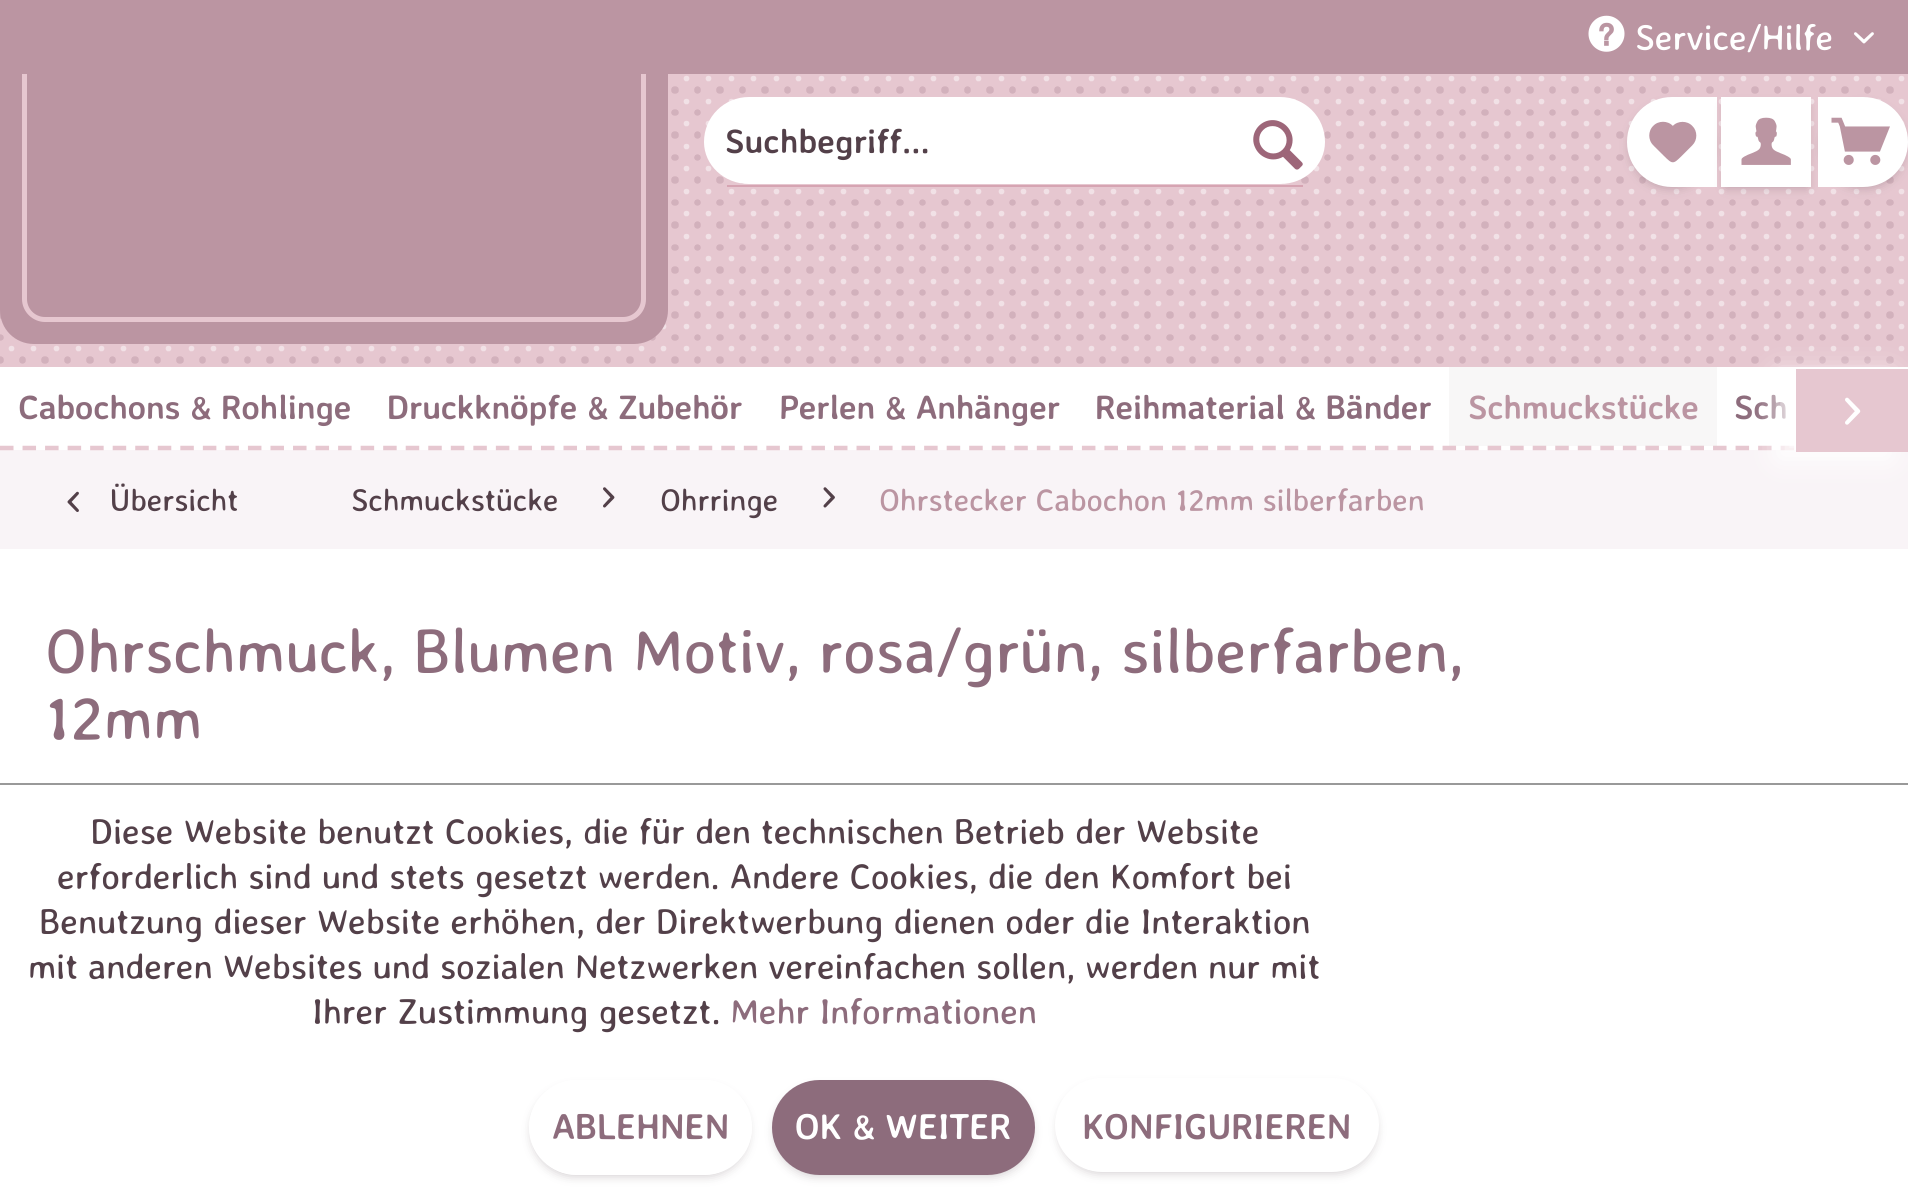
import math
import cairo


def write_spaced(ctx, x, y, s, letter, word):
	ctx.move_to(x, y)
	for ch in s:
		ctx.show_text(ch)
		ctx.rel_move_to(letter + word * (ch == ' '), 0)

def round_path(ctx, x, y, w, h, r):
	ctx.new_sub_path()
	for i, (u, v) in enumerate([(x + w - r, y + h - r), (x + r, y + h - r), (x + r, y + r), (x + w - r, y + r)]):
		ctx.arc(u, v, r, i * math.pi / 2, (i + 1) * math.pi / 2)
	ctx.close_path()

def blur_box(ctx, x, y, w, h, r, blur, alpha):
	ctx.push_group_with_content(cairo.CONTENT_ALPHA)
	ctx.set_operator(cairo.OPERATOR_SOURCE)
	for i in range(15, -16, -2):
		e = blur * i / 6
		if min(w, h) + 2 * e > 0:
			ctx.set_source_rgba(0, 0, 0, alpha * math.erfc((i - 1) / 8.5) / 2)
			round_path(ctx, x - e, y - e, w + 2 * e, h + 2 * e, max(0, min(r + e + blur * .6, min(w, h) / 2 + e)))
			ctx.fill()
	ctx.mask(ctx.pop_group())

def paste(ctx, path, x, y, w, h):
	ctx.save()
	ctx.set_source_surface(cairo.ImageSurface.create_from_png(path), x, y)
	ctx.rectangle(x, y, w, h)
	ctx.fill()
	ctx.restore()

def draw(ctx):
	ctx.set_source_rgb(0.973, 0.957, 0.965)
	ctx.paint()
	ctx.set_source_rgb(0.902, 0.78, 0.816)
	ctx.rectangle(0, 74, 1908, 293)
	ctx.fill()
	paste(ctx, 'media/1.png', 0, 75, 1905, 289)
	ctx.set_source_rgb(0.733, 0.584, 0.635)
	ctx.rectangle(0, 0, 1908, 74)
	ctx.fill()
	paste(ctx, 'media/2.png', 1588, 15, 37, 37)
	ctx.select_font_face('Averia Sans Libre')
	ctx.set_font_size(36)
	ctx.set_source_rgb(1, 1, 1)
	write_spaced(ctx, 1635, 50, 'Service/Hilfe', -0.27, 0)
	paste(ctx, 'media/3.png', 1854, 32, 20, 12)
	ctx.set_source_rgb(0.733, 0.584, 0.635)
	ctx.new_path()
	ctx.move_to(0, 52)
	ctx.line_to(668, 52)
	ctx.line_to(668, 310)
	ctx.curve_to(668, 329, 653, 344, 634, 344)
	ctx.line_to(34, 344)
	ctx.curve_to(15, 344, 0, 329, 0, 310)
	ctx.close_path()
	ctx.fill()
	ctx.set_source_rgb(0.902, 0.78, 0.816)
	ctx.set_fill_rule(cairo.FILL_RULE_EVEN_ODD)
	ctx.new_path()
	ctx.move_to(22, 74)
	ctx.line_to(646, 74)
	ctx.line_to(646, 299)
	ctx.curve_to(646, 312, 636, 322, 623, 322)
	ctx.line_to(45, 322)
	ctx.curve_to(33, 322, 22, 312, 22, 299)
	ctx.close_path()
	ctx.move_to(27, 74)
	ctx.line_to(641, 74)
	ctx.line_to(641, 299)
	ctx.curve_to(641, 309, 633, 317, 623, 317)
	ctx.line_to(45, 317)
	ctx.curve_to(35, 317, 27, 309, 27, 299)
	ctx.close_path()
	ctx.fill()
	ctx.set_source_rgb(1, 1, 1)
	ctx.set_fill_rule(cairo.FILL_RULE_WINDING)
	ctx.new_path()
	ctx.move_to(749, 97)
	ctx.line_to(1280, 97)
	ctx.curve_to(1305, 97, 1325, 117, 1325, 142)
	ctx.curve_to(1325, 165, 1305, 184, 1280, 184)
	ctx.line_to(749, 184)
	ctx.curve_to(724, 184, 704, 165, 704, 142)
	ctx.curve_to(704, 117, 724, 97, 749, 97)
	ctx.close_path()
	ctx.fill()
	ctx.set_source_rgb(0.839, 0.643, 0.698)
	ctx.rectangle(727, 185, 576, 2)
	ctx.fill()
	ctx.select_font_face('Averia Sans Libre', cairo.FONT_SLANT_NORMAL, cairo.FONT_WEIGHT_BOLD)
	ctx.set_font_size(33.75)
	ctx.set_source_rgb(0.325, 0.251, 0.286)
	ctx.move_to(725, 153)
	ctx.show_text('Suchbegriff...')
	paste(ctx, 'media/4.png', 1253, 120, 50, 50)
	ctx.set_source_rgb(0.298, 0.227, 0.263)
	blur_box(ctx, 1631, 106, 81, 81, 40.5, 5.5, 0.3)
	ctx.set_source_rgb(1, 1, 1)
	ctx.new_path()
	ctx.move_to(1672, 97)
	ctx.line_to(1717, 97)
	ctx.line_to(1717, 187)
	ctx.line_to(1672, 187)
	ctx.curve_to(1647, 187, 1627, 167, 1627, 142)
	ctx.curve_to(1627, 117, 1647, 97, 1672, 97)
	ctx.close_path()
	ctx.fill()
	paste(ctx, 'media/5.png', 1649, 121, 48, 42)
	ctx.set_source_rgb(0.298, 0.227, 0.263)
	blur_box(ctx, 1726, 106, 81, 81, 0, 5.5, 0.3)
	ctx.set_source_rgb(1, 1, 1)
	ctx.rectangle(1721, 97, 90, 90)
	ctx.fill()
	paste(ctx, 'media/6.png', 1741, 117, 50, 48)
	ctx.set_source_rgb(0.298, 0.227, 0.263)
	blur_box(ctx, 1823, 106, 81, 81, 40.5, 5.5, 0.3)
	ctx.set_source_rgb(1, 1, 1)
	ctx.new_path()
	ctx.move_to(1818, 97)
	ctx.line_to(1863, 97)
	ctx.curve_to(1888, 97, 1908, 117, 1908, 142)
	ctx.curve_to(1908, 167, 1888, 187, 1863, 187)
	ctx.line_to(1818, 187)
	ctx.close_path()
	ctx.fill()
	paste(ctx, 'media/7.png', 1831, 117, 59, 48)
	ctx.rectangle(0, 367, 1908, 83)
	ctx.fill()
	ctx.new_path()
	ctx.move_to(0, 448)
	ctx.line_to(1908, 448)
	ctx.set_source_rgb(0.902, 0.78, 0.816)
	ctx.set_line_width(4.5)
	ctx.set_dash([13.5, 9.04])
	ctx.stroke()
	ctx.set_source_rgb(0.553, 0.424, 0.486)
	for x, y, s in [
		(18, 419, 'Cabochons & Rohlinge'),
		(387, 419, 'Druckknöpfe & Zubehör'),
		(779, 419, 'Perlen & Anhänger'),
		(1095, 419, 'Reihmaterial & Bänder'),
	]:
		write_spaced(ctx, x, y, s, -0.27, 0)
	ctx.set_source_rgba(0.298, 0.227, 0.263, 0.04)
	ctx.rectangle(1449, 367, 268, 79)
	ctx.fill()
	ctx.set_source_rgb(0.733, 0.584, 0.635)
	write_spaced(ctx, 1468, 419, 'Schmuckstücke', -0.27, 0)
	ctx.set_source_rgb(0.553, 0.424, 0.486)
	write_spaced(ctx, 1734, 419, 'Sch', -0.27, 0)
	ctx.set_source_rgb(1, 1, 1)
	blur_box(ctx, 1778, 376, 112, 83, 0, 13.5, 1)
	ctx.set_source_rgb(0.902, 0.78, 0.816)
	ctx.rectangle(1796, 369, 112, 83)
	ctx.fill()
	paste(ctx, 'media/8.png', 1845, 397, 16, 28)
	paste(ctx, 'media/9.png', 67, 491, 12, 21)
	ctx.select_font_face('Averia Sans Libre')
	ctx.set_font_size(31.5)
	ctx.set_source_rgb(0.325, 0.251, 0.286)
	write_spaced(ctx, 110, 511, 'Übersicht', -0.27, 0)
	write_spaced(ctx, 351, 511, 'Schmuckstücke', -0.27, 0)
	paste(ctx, 'media/10.png', 603, 487, 12, 21)
	write_spaced(ctx, 660, 511, 'Ohrringe', -0.27, 0)
	paste(ctx, 'media/11.png', 823, 487, 12, 21)
	ctx.set_source_rgb(0.733, 0.584, 0.635)
	write_spaced(ctx, 879, 511, 'Ohrstecker Cabochon 12mm silberfarben', -0.27, 0)
	ctx.set_source_rgb(1, 1, 1)
	ctx.rectangle(0, 549, 1908, 234)
	ctx.fill()
	ctx.set_font_size(63)
	ctx.set_source_rgb(0.553, 0.424, 0.486)
	write_spaced(ctx, 45, 673, 'Ohrschmuck, Blumen Motiv, rosa/grün, silberfarben,', -0.27, 0)
	write_spaced(ctx, 45, 740, '12mm', -0.27, 0)
	ctx.set_source_rgb(1, 1, 1)
	ctx.rectangle(0, 785, 1908, 411)
	ctx.fill()
	ctx.set_source_rgb(0.6, 0.6, 0.6)
	ctx.rectangle(0, 783, 1908, 2)
	ctx.fill()
	ctx.set_font_size(36)
	ctx.set_source_rgb(0.325, 0.251, 0.286)
	for x, y, s in [
		(90, 844, 'Diese Website benutzt Cookies, die für den technischen Betrieb der Website'),
		(57, 889, 'erforderlich sind und stets gesetzt werden. Andere Cookies, die den Komfort bei'),
		(39, 934, 'Benutzung dieser Website erhöhen, der Direktwerbung dienen oder die Interaktion'),
		(28, 979, 'mit anderen Websites und sozialen Netzwerken vereinfachen sollen, werden nur mit'),
		(312, 1024, 'Ihrer Zustimmung gesetzt.'),
	]:
		write_spaced(ctx, x, y, s, -0.27, 0)
	ctx.set_source_rgb(0.553, 0.424, 0.486)
	write_spaced(ctx, 730, 1024, 'Mehr Informationen', -0.27, 0)
	ctx.save()
	ctx.set_fill_rule(cairo.FILL_RULE_EVEN_ODD)
	ctx.new_path()
	ctx.move_to(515, 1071)
	ctx.line_to(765, 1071)
	ctx.line_to(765, 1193)
	ctx.line_to(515, 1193)
	ctx.close_path()
	ctx.move_to(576.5, 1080)
	ctx.line_to(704.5, 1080)
	ctx.curve_to(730.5, 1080, 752, 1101.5, 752, 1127.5)
	ctx.curve_to(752, 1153.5, 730.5, 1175, 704.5, 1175)
	ctx.line_to(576.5, 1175)
	ctx.curve_to(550.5, 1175, 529, 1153.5, 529, 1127.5)
	ctx.curve_to(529, 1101.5, 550.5, 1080, 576.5, 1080)
	ctx.close_path()
	ctx.clip()
	ctx.set_source_rgb(0.298, 0.227, 0.263)
	blur_box(ctx, 533, 1089, 214, 86, 43, 5.5, 0.3)
	ctx.restore()
	ctx.select_font_face('Averia Sans Libre', cairo.FONT_SLANT_NORMAL, cairo.FONT_WEIGHT_BOLD)
	write_spaced(ctx, 552, 1139, 'ABLEHNEN', -0.27, 0)
	ctx.set_source_rgb(0.298, 0.227, 0.263)
	blur_box(ctx, 776, 1089, 255, 86, 43, 5.5, 0.3)
	ctx.set_source_rgb(0.553, 0.424, 0.486)
	round_path(ctx, 772, 1080, 263, 95, 47.5)
	ctx.fill()
	ctx.set_source_rgb(1, 1, 1)
	write_spaced(ctx, 795, 1139, 'OK & WEITER', -0.27, 0)
	ctx.set_source_rgb(0.298, 0.227, 0.263)
	blur_box(ctx, 1060, 1087, 315, 85, 42.5, 5.5, 0.3)
	ctx.set_source_rgb(1, 1, 1)
	round_path(ctx, 1055, 1078, 324, 94, 47)
	ctx.fill()
	ctx.set_source_rgb(0.553, 0.424, 0.486)
	write_spaced(ctx, 1082, 1139, 'KONFIGURIEREN', -0.27, 0)


surface = cairo.ImageSurface(cairo.FORMAT_RGB24, 1908, 1196)
ctx = cairo.Context(surface)
options = cairo.FontOptions()
options.set_hint_metrics(cairo.HINT_METRICS_OFF)
options.set_hint_style(cairo.HINT_STYLE_NONE)
ctx.set_font_options(options)
ctx.set_miter_limit(4)
draw(ctx)
surface.write_to_png('image.png')
